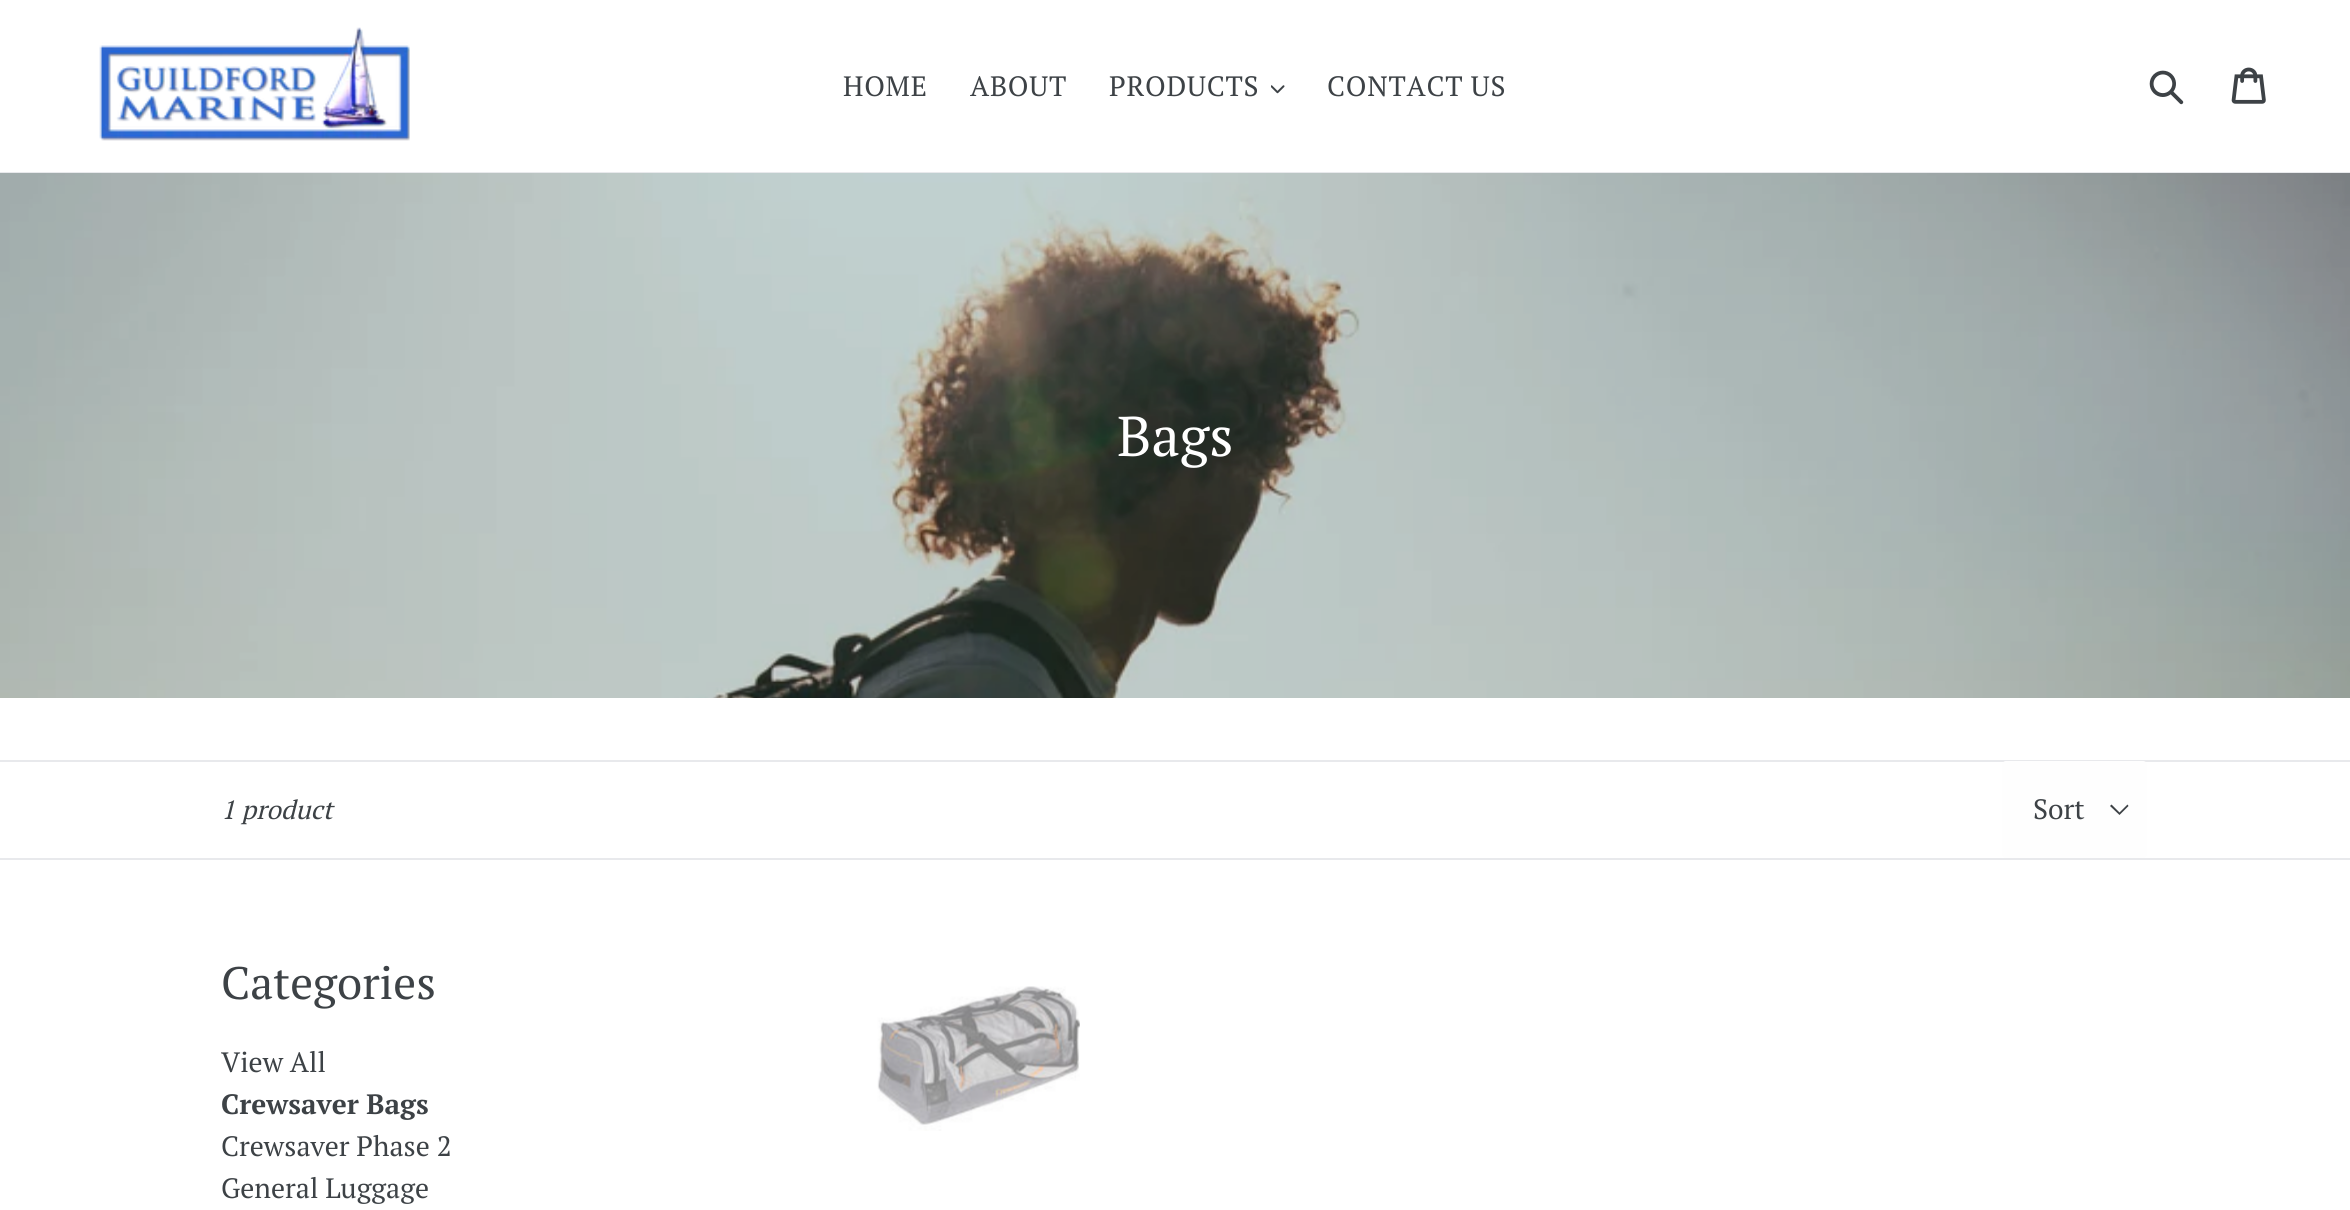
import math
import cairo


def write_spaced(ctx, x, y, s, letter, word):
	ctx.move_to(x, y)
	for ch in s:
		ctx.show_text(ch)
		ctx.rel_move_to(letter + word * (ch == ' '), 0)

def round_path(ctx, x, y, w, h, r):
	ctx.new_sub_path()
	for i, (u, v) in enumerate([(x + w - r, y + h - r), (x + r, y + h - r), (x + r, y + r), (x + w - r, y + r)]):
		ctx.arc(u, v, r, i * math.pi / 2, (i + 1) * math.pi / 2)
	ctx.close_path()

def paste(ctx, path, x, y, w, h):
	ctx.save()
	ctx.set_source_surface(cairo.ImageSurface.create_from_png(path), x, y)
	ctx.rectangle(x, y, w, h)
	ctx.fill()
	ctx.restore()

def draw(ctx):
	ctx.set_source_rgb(1, 1, 1)
	ctx.paint()
	ctx.set_source_rgb(0.91, 0.914, 0.922)
	ctx.rectangle(0, 172, 2350, 1)
	ctx.fill()
	paste(ctx, 'media/1.png', 99, 27, 311, 114)
	ctx.select_font_face('PT Serif')
	ctx.set_font_size(28)
	ctx.set_source_rgb(0.239, 0.259, 0.275)
	for x, y, s in [
		(843, 96, 'HOME'),
		(970, 96, 'ABOUT'),
		(1109, 96, 'PRODUCTS'),
	]:
		write_spaced(ctx, x, y, s, 0.75, 0)
	paste(ctx, 'media/2.png', 1271, 85, 14, 9)
	write_spaced(ctx, 1327, 96, 'CONTACT US', 0.75, 0)
	paste(ctx, 'media/3.png', 2149, 70, 35, 35)
	paste(ctx, 'media/4.png', 2231, 67, 35, 37)
	paste(ctx, 'media/5.png', 0, 173, 2350, 525)
	ctx.set_font_size(56)
	ctx.set_source_rgb(1, 1, 1)
	ctx.move_to(1117, 456)
	ctx.show_text('Bags')
	ctx.set_source_rgb(0.91, 0.914, 0.922)
	ctx.rectangle(0, 760, 2350, 2)
	ctx.fill()
	ctx.rectangle(0, 858, 2350, 2)
	ctx.fill()
	ctx.select_font_face('PT Serif', cairo.FONT_SLANT_ITALIC)
	ctx.set_font_size(26.25)
	ctx.set_source_rgb(0.239, 0.259, 0.275)
	ctx.move_to(221, 819)
	ctx.show_text('1 product')
	ctx.set_source_rgb(0.996, 0.996, 0.996)
	round_path(ctx, 2002, 761, 145, 97, 4)
	ctx.fill()
	ctx.set_source_rgb(0.239, 0.259, 0.275)
	ctx.set_fill_rule(cairo.FILL_RULE_EVEN_ODD)
	ctx.new_path()
	ctx.move_to(2119.5, 815)
	ctx.line_to(2110, 806)
	ctx.line_to(2111.5, 804.5)
	ctx.line_to(2119.5, 812.5)
	ctx.line_to(2127.5, 804.5)
	ctx.line_to(2128.5, 806)
	ctx.close_path()
	ctx.fill()
	ctx.select_font_face('PT Serif')
	ctx.set_font_size(28)
	ctx.move_to(2033, 819)
	ctx.show_text('Sort')
	ctx.set_font_size(45.5)
	ctx.move_to(221, 999)
	ctx.show_text('Categories')
	ctx.set_font_size(28)
	ctx.move_to(221, 1072)
	ctx.show_text('View All')
	ctx.select_font_face('PT Serif', cairo.FONT_SLANT_NORMAL, cairo.FONT_WEIGHT_BOLD)
	ctx.move_to(221, 1114)
	ctx.show_text('Crewsaver Bags')
	ctx.select_font_face('PT Serif')
	ctx.move_to(221, 1156)
	ctx.show_text('Crewsaver Phase 2')
	ctx.move_to(221, 1198)
	ctx.show_text('General Luggage')
	paste(ctx, 'media/6.png', 877, 986, 203, 145)


surface = cairo.ImageSurface(cairo.FORMAT_RGB24, 2350, 1210)
ctx = cairo.Context(surface)
options = cairo.FontOptions()
options.set_hint_metrics(cairo.HINT_METRICS_OFF)
options.set_hint_style(cairo.HINT_STYLE_NONE)
ctx.set_font_options(options)
ctx.set_miter_limit(4)
draw(ctx)
surface.write_to_png('image.png')
